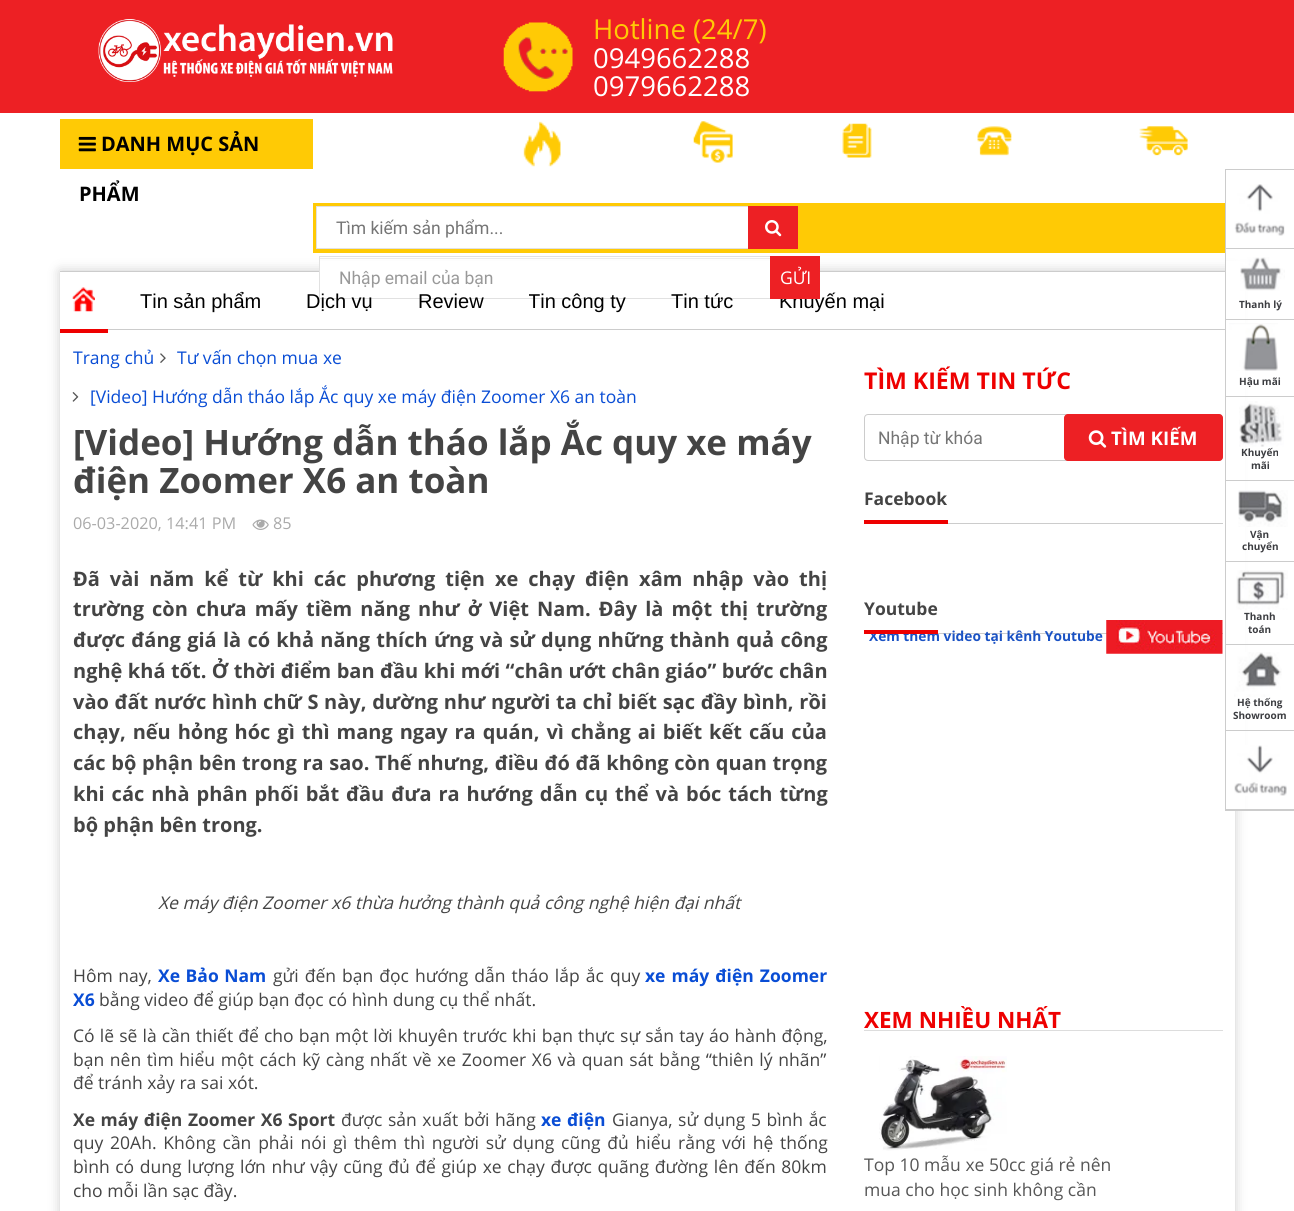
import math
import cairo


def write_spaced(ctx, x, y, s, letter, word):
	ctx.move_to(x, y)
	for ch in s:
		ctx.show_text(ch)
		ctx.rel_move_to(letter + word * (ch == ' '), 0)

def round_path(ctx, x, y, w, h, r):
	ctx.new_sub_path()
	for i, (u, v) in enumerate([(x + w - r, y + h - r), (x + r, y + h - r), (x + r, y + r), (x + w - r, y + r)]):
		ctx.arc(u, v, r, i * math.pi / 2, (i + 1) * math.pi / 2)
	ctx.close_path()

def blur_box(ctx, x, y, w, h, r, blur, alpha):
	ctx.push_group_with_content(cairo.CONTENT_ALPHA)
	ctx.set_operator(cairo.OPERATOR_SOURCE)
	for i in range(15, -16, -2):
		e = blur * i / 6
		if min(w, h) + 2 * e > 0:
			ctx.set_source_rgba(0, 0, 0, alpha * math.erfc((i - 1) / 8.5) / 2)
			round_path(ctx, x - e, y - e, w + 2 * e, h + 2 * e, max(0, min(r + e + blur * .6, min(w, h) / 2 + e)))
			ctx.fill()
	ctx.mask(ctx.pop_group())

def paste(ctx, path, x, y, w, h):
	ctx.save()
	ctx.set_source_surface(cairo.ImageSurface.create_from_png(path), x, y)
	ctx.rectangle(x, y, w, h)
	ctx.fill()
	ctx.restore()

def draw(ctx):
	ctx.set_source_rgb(1, 1, 1)
	ctx.paint()
	ctx.set_source_rgb(0.929, 0.125, 0.141)
	ctx.rectangle(0, 0, 1294, 113)
	ctx.fill()
	paste(ctx, 'media/1.png', 98, 19, 295, 63)
	paste(ctx, 'media/2.png', 503, 22, 70, 70)
	ctx.select_font_face('Open Sans')
	ctx.set_font_size(27.5)
	ctx.set_source_rgb(1, 0.792, 0.02)
	ctx.move_to(593, 39)
	ctx.show_text('Hotline (24/7)')
	ctx.set_source_rgb(1, 1, 1)
	ctx.move_to(593, 68)
	ctx.show_text('0949662288')
	ctx.move_to(593, 96)
	ctx.show_text('0979662288')
	paste(ctx, 'media/3.png', 523, 121, 38, 46)
	paste(ctx, 'media/4.png', 693, 121, 40, 42)
	paste(ctx, 'media/5.png', 842, 123, 30, 35)
	paste(ctx, 'media/6.png', 977, 126, 35, 30)
	paste(ctx, 'media/7.png', 1139, 126, 49, 30)
	ctx.set_source_rgb(1, 0.792, 0.02)
	ctx.rectangle(60, 119, 253, 50)
	ctx.fill()
	paste(ctx, 'media/8.png', 78, 136, 18, 16)
	ctx.select_font_face('Open Sans', cairo.FONT_SLANT_NORMAL, cairo.FONT_WEIGHT_BOLD)
	ctx.set_font_size(20)
	ctx.set_source_rgb(0, 0, 0)
	ctx.move_to(101, 151)
	ctx.show_text('DANH MỤC SẢN')
	ctx.move_to(79, 201)
	ctx.show_text('PHẨM')
	ctx.set_source_rgb(1, 0.792, 0.02)
	ctx.rectangle(313, 203, 912, 50)
	ctx.fill()
	ctx.set_source_rgb(1, 1, 1)
	ctx.rectangle(317, 207, 431, 41)
	ctx.fill()
	ctx.rectangle(316.5, 206.5, 481, 42)
	ctx.set_source_rgb(0.882, 0.882, 0.882)
	ctx.set_line_width(1)
	ctx.stroke()
	ctx.select_font_face('Roboto')
	ctx.set_font_size(17.5)
	ctx.set_source_rgb(0.459, 0.459, 0.459)
	ctx.move_to(336, 234)
	ctx.show_text('Tìm kiếm sản phẩm...')
	ctx.set_source_rgb(0.929, 0.125, 0.141)
	ctx.rectangle(748, 206, 50, 43)
	ctx.fill()
	paste(ctx, 'media/9.png', 765, 220, 17, 17)
	ctx.save()
	ctx.set_fill_rule(cairo.FILL_RULE_EVEN_ODD)
	ctx.new_path()
	ctx.move_to(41, 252)
	ctx.line_to(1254, 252)
	ctx.line_to(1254, 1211)
	ctx.line_to(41, 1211)
	ctx.close_path()
	ctx.move_to(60, 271)
	ctx.line_to(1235, 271)
	ctx.line_to(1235, 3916)
	ctx.line_to(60, 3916)
	ctx.close_path()
	ctx.clip()
	ctx.set_source_rgb(0, 0, 0)
	blur_box(ctx, 60, 271, 1175, 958, 0, 6, 0.2)
	ctx.restore()
	ctx.set_source_rgb(0.8, 0.8, 0.8)
	ctx.rectangle(60, 271, 1165, 1)
	ctx.fill()
	ctx.set_source_rgb(1, 1, 1)
	ctx.rectangle(320, 261, 450, 11)
	ctx.fill()
	ctx.set_source_rgb(0.925, 0.925, 0.925)
	ctx.rectangle(320, 258, 450, 1)
	ctx.fill()
	ctx.rectangle(319.5, 256.5, 480, 42)
	ctx.set_source_rgb(0.882, 0.882, 0.882)
	ctx.stroke()
	ctx.set_source_rgb(0.6, 0.6, 0.6)
	ctx.move_to(339, 284)
	ctx.show_text('Nhập email của bạn')
	ctx.select_font_face('Liberation Sans')
	ctx.set_font_size(20)
	ctx.set_source_rgb(0, 0, 0)
	ctx.move_to(779, 308)
	ctx.show_text('Khuyến mại')
	ctx.set_source_rgb(0.929, 0.125, 0.141)
	ctx.rectangle(770, 256, 50, 43)
	ctx.fill()
	ctx.select_font_face('Open Sans')
	ctx.set_font_size(17.5)
	ctx.set_source_rgb(1, 1, 1)
	ctx.move_to(780, 284)
	ctx.show_text('GỬI')
	ctx.set_source_rgb(0.8, 0.8, 0.8)
	ctx.rectangle(108, 329, 1117, 1)
	ctx.fill()
	ctx.set_source_rgb(0.933, 0, 0)
	ctx.rectangle(60, 329, 48, 4)
	ctx.fill()
	paste(ctx, 'media/10.png', 72, 287, 23, 25)
	ctx.select_font_face('Liberation Sans')
	ctx.set_font_size(20)
	ctx.set_source_rgb(0, 0, 0)
	for x, y, s in [
		(140, 308, 'Tin sản phẩm'),
		(306, 308, 'Dịch vụ'),
		(418, 308, 'Review'),
	]:
		ctx.move_to(x, y)
		ctx.show_text(s)
	ctx.save()
	ctx.rectangle(529, 273, 97, 56)
	ctx.clip()
	ctx.move_to(528, 308)
	ctx.show_text('Tin công ty')
	ctx.restore()
	ctx.move_to(671, 308)
	ctx.show_text('Tin tức')
	ctx.select_font_face('Open Sans')
	ctx.set_font_size(17.5)
	ctx.set_source_rgb(0.039, 0.302, 0.835)
	ctx.move_to(73, 364)
	ctx.show_text('Trang chủ')
	paste(ctx, 'media/11.png', 160, 353, 6, 10)
	ctx.move_to(177, 364)
	ctx.show_text('Tư vấn chọn mua xe')
	paste(ctx, 'media/12.png', 72, 392, 7, 10)
	ctx.move_to(90, 403)
	ctx.show_text('[Video] Hướng dẫn tháo lắp Ắc quy xe máy điện Zoomer X6 an toàn')
	ctx.select_font_face('Open Sans', cairo.FONT_SLANT_NORMAL, cairo.FONT_WEIGHT_BOLD)
	ctx.set_font_size(35)
	ctx.set_source_rgb(0.267, 0.267, 0.267)
	ctx.move_to(73, 455)
	ctx.show_text('[Video] Hướng dẫn tháo lắp Ắc quy xe máy')
	ctx.move_to(73, 493)
	ctx.show_text('điện Zoomer X6 an toàn')
	ctx.select_font_face('Open Sans')
	ctx.set_font_size(16.25)
	ctx.set_source_rgb(0.667, 0.667, 0.667)
	ctx.move_to(73, 529)
	ctx.show_text('06-03-2020, 14:41 PM')
	paste(ctx, 'media/13.png', 252, 519, 17, 11)
	ctx.move_to(273, 529)
	ctx.show_text('85')
	ctx.select_font_face('Open Sans', cairo.FONT_SLANT_NORMAL, cairo.FONT_WEIGHT_BOLD)
	ctx.set_font_size(20)
	ctx.set_source_rgb(0.267, 0.267, 0.267)
	write_spaced(ctx, 73, 586, 'Đã vài năm kể từ khi các phương tiện xe chạy điện xâm nhập vào thị', 0, 4.75)
	write_spaced(ctx, 73, 616, 'trường còn chưa mấy tiềm năng như ở Việt Nam. Đây là một thị trường', 0, 2.9)
	write_spaced(ctx, 73, 647, 'được đáng giá là có khả năng thích ứng và sử dụng những thành quả công', 0, 1.1)
	write_spaced(ctx, 73, 678, 'nghệ khá tốt. Ở thời điểm ban đầu khi mới “chân ướt chân giáo” bước chân', 0, 0.25)
	write_spaced(ctx, 73, 709, 'vào đất nước hình chữ S này, dường như người ta chỉ biết sạc đầy bình, rồi', 0, 0.5)
	write_spaced(ctx, 73, 739, 'chạy, nếu hỏng hóc gì thì mang ngay ra quán, vì chẳng ai biết kết cấu của', 0, 1.75)
	write_spaced(ctx, 73, 770, 'các bộ phận bên trong ra sao. Thế nhưng, điều đó đã không còn quan trọng', 0, 0.5)
	write_spaced(ctx, 73, 801, 'khi các nhà phân phối bắt đầu đưa ra hướng dẫn cụ thể và bóc tách từng', 0, 1.75)
	ctx.move_to(73, 832)
	ctx.show_text('bộ phận bên trong.')
	ctx.select_font_face('Open Sans', cairo.FONT_SLANT_ITALIC)
	ctx.set_font_size(17.5)
	ctx.move_to(158, 909)
	ctx.show_text('Xe máy điện Zoomer x6 thừa hưởng thành quả công nghệ hiện đại nhất')
	ctx.select_font_face('Open Sans')
	write_spaced(ctx, 73, 982, 'Hôm nay,', 0, 1)
	ctx.select_font_face('Open Sans', cairo.FONT_SLANT_NORMAL, cairo.FONT_WEIGHT_BOLD)
	ctx.set_source_rgb(0.039, 0.302, 0.835)
	write_spaced(ctx, 158, 982, 'Xe Bảo Nam', 0, 1)
	ctx.select_font_face('Open Sans')
	ctx.set_source_rgb(0.267, 0.267, 0.267)
	write_spaced(ctx, 273, 982, 'gửi đến bạn đọc hướng dẫn tháo lắp ắc quy', 0, 1.5)
	ctx.select_font_face('Open Sans', cairo.FONT_SLANT_NORMAL, cairo.FONT_WEIGHT_BOLD)
	ctx.set_source_rgb(0.039, 0.302, 0.835)
	write_spaced(ctx, 645, 982, 'xe máy điện Zoomer', 0, 1.5)
	ctx.move_to(73, 1006)
	ctx.show_text('X6')
	ctx.select_font_face('Open Sans')
	ctx.set_source_rgb(0.267, 0.267, 0.267)
	ctx.move_to(99, 1006)
	ctx.show_text('bằng video để giúp bạn đọc có hình dung cụ thể nhất.')
	write_spaced(ctx, 73, 1042, 'Có lẽ sẽ là cần thiết để cho bạn một lời khuyên trước khi bạn thực sự sắn tay áo hành động,', 0, 0.6)
	write_spaced(ctx, 73, 1066, 'bạn nên tìm hiểu một cách kỹ càng nhất về xe Zoomer X6 và quan sát bằng “thiên lý nhãn”', 0, 1.1)
	ctx.move_to(73, 1089)
	ctx.show_text('để tránh xảy ra sai xót.')
	ctx.select_font_face('Open Sans', cairo.FONT_SLANT_NORMAL, cairo.FONT_WEIGHT_BOLD)
	write_spaced(ctx, 73, 1126, 'Xe máy điện Zoomer X6 Sport', 0, 1)
	ctx.select_font_face('Open Sans')
	write_spaced(ctx, 341, 1126, 'được sản xuất bởi hãng', 0, 1)
	ctx.select_font_face('Open Sans', cairo.FONT_SLANT_NORMAL, cairo.FONT_WEIGHT_BOLD)
	ctx.set_source_rgb(0.039, 0.302, 0.835)
	write_spaced(ctx, 541, 1126, 'xe điện', 0, 1)
	ctx.select_font_face('Open Sans')
	ctx.set_source_rgb(0.267, 0.267, 0.267)
	write_spaced(ctx, 612, 1126, 'Gianya, sử dụng 5 bình ắc', 0, 1)
	write_spaced(ctx, 73, 1149, 'quy 20Ah. Không cần phải nói gì thêm thì người sử dụng cũng đủ hiểu rằng với hệ thống', 0, 2.25)
	write_spaced(ctx, 73, 1173, 'bình có dung lượng lớn như vậy cũng đủ để giúp xe chạy được quãng đường lên đến 80km', 0, 1.1)
	ctx.move_to(73, 1197)
	ctx.show_text('cho mỗi lần sạc đầy.')
	ctx.select_font_face('Open Sans', cairo.FONT_SLANT_NORMAL, cairo.FONT_WEIGHT_BOLD)
	ctx.set_font_size(23.1)
	ctx.set_source_rgb(0.933, 0, 0)
	ctx.move_to(864, 389)
	ctx.show_text('TÌM KIẾM TIN TỨC')
	round_path(ctx, 864.5, 414.5, 358, 46, 3.5)
	ctx.set_source_rgb(0.8, 0.8, 0.8)
	ctx.stroke()
	ctx.select_font_face('Roboto')
	ctx.set_font_size(17.5)
	ctx.set_source_rgb(0.459, 0.459, 0.459)
	ctx.move_to(878, 444)
	ctx.show_text('Nhập từ khóa')
	ctx.set_source_rgb(0.929, 0.125, 0.141)
	round_path(ctx, 1064, 414, 159, 47, 4)
	ctx.fill()
	paste(ctx, 'media/14.png', 1088, 430, 19, 18)
	ctx.select_font_face('Open Sans', cairo.FONT_SLANT_NORMAL, cairo.FONT_WEIGHT_BOLD)
	ctx.set_font_size(18.75)
	ctx.set_source_rgb(1, 1, 1)
	ctx.move_to(1111, 445)
	ctx.show_text('TÌM KIẾM')
	ctx.set_source_rgb(0.8, 0.8, 0.8)
	ctx.rectangle(948, 523, 275, 1)
	ctx.fill()
	ctx.set_font_size(17.5)
	ctx.set_source_rgb(0.267, 0.267, 0.267)
	ctx.move_to(864, 505)
	ctx.show_text('Facebook')
	ctx.set_source_rgb(0.933, 0, 0)
	ctx.rectangle(864, 520, 84, 4)
	ctx.fill()
	ctx.set_source_rgb(0.8, 0.8, 0.8)
	ctx.rectangle(938, 633, 285, 1)
	ctx.fill()
	ctx.set_source_rgb(0.267, 0.267, 0.267)
	ctx.move_to(864, 615)
	ctx.show_text('Youtube')
	ctx.set_font_size(13.75)
	ctx.set_source_rgb(0.102, 0.322, 0.769)
	ctx.move_to(869, 641)
	ctx.show_text('Xem thêm video tại kênh Youtube')
	ctx.set_source_rgb(0.933, 0, 0)
	ctx.rectangle(864, 630, 74, 4)
	ctx.fill()
	paste(ctx, 'media/15.png', 1106, 620, 117, 34)
	ctx.set_source_rgb(0.867, 0.867, 0.867)
	ctx.rectangle(864, 1030, 359, 1)
	ctx.fill()
	ctx.set_font_size(22.5)
	ctx.set_source_rgb(0.933, 0, 0)
	ctx.move_to(864, 1028)
	ctx.show_text('XEM NHIỀU NHẤT')
	paste(ctx, 'media/16.png', 879, 1056, 128, 95)
	ctx.select_font_face('Open Sans')
	ctx.set_font_size(17.5)
	ctx.set_source_rgb(0.337, 0.337, 0.337)
	ctx.move_to(864, 1171)
	ctx.show_text('Top 10 mẫu xe 50cc giá rẻ nên')
	ctx.move_to(864, 1196)
	ctx.show_text('mua cho học sinh không cần')
	ctx.set_source_rgb(1, 1, 1)
	ctx.rectangle(1226, 261, 19, 548)
	ctx.fill()
	ctx.rectangle(1225.5, 169.5, 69, 641)
	ctx.set_source_rgb(0.8, 0.8, 0.8)
	ctx.stroke()
	ctx.rectangle(1226, 248, 68, 1)
	ctx.fill()
	paste(ctx, 'media/17.png', 1234, 184, 51, 52)
	ctx.rectangle(1226, 319, 68, 1)
	ctx.fill()
	paste(ctx, 'media/18.png', 1240, 257, 45, 34)
	ctx.select_font_face('Open Sans', cairo.FONT_SLANT_NORMAL, cairo.FONT_WEIGHT_BOLD)
	ctx.set_font_size(10)
	ctx.set_source_rgb(0.235, 0.239, 0.255)
	ctx.move_to(1239, 308)
	ctx.show_text('Thanh lý')
	ctx.set_source_rgb(0.8, 0.8, 0.8)
	ctx.rectangle(1226, 396, 68, 1)
	ctx.fill()
	paste(ctx, 'media/19.png', 1229, 323, 49, 48)
	ctx.set_source_rgb(0.235, 0.239, 0.255)
	ctx.move_to(1239, 385)
	ctx.show_text('Hậu mãi')
	ctx.set_source_rgb(0.8, 0.8, 0.8)
	ctx.rectangle(1226, 480, 68, 1)
	ctx.fill()
	paste(ctx, 'media/20.png', 1239, 401, 45, 46)
	ctx.set_source_rgb(0.235, 0.239, 0.255)
	ctx.move_to(1241, 456)
	ctx.show_text('Khuyến')
	ctx.move_to(1251, 469)
	ctx.show_text('mãi')
	ctx.set_source_rgb(0.8, 0.8, 0.8)
	ctx.rectangle(1226, 561, 68, 1)
	ctx.fill()
	paste(ctx, 'media/21.png', 1238, 490, 50, 37)
	ctx.set_source_rgb(0.235, 0.239, 0.255)
	ctx.move_to(1250, 538)
	ctx.show_text('Vận')
	ctx.move_to(1242, 550)
	ctx.show_text('chuyển')
	ctx.set_source_rgb(0.8, 0.8, 0.8)
	ctx.rectangle(1226, 644, 68, 1)
	ctx.fill()
	paste(ctx, 'media/22.png', 1236, 570, 52, 40)
	ctx.set_source_rgb(0.235, 0.239, 0.255)
	ctx.move_to(1244, 620)
	ctx.show_text('Thanh')
	ctx.move_to(1248, 633)
	ctx.show_text('toán')
	ctx.set_source_rgb(0.8, 0.8, 0.8)
	ctx.rectangle(1226, 730, 68, 1)
	ctx.fill()
	paste(ctx, 'media/23.png', 1234, 652, 48, 45)
	ctx.set_source_rgb(0.235, 0.239, 0.255)
	ctx.move_to(1237, 706)
	ctx.show_text('Hệ thống')
	ctx.move_to(1233, 719)
	ctx.show_text('Showroom')
	ctx.set_source_rgb(0.8, 0.8, 0.8)
	ctx.rectangle(1226, 809, 68, 1)
	ctx.fill()
	paste(ctx, 'media/24.png', 1234, 745, 53, 51)


surface = cairo.ImageSurface(cairo.FORMAT_RGB24, 1294, 1211)
ctx = cairo.Context(surface)
options = cairo.FontOptions()
options.set_hint_metrics(cairo.HINT_METRICS_OFF)
options.set_hint_style(cairo.HINT_STYLE_NONE)
ctx.set_font_options(options)
ctx.set_miter_limit(4)
draw(ctx)
surface.write_to_png('image.png')
